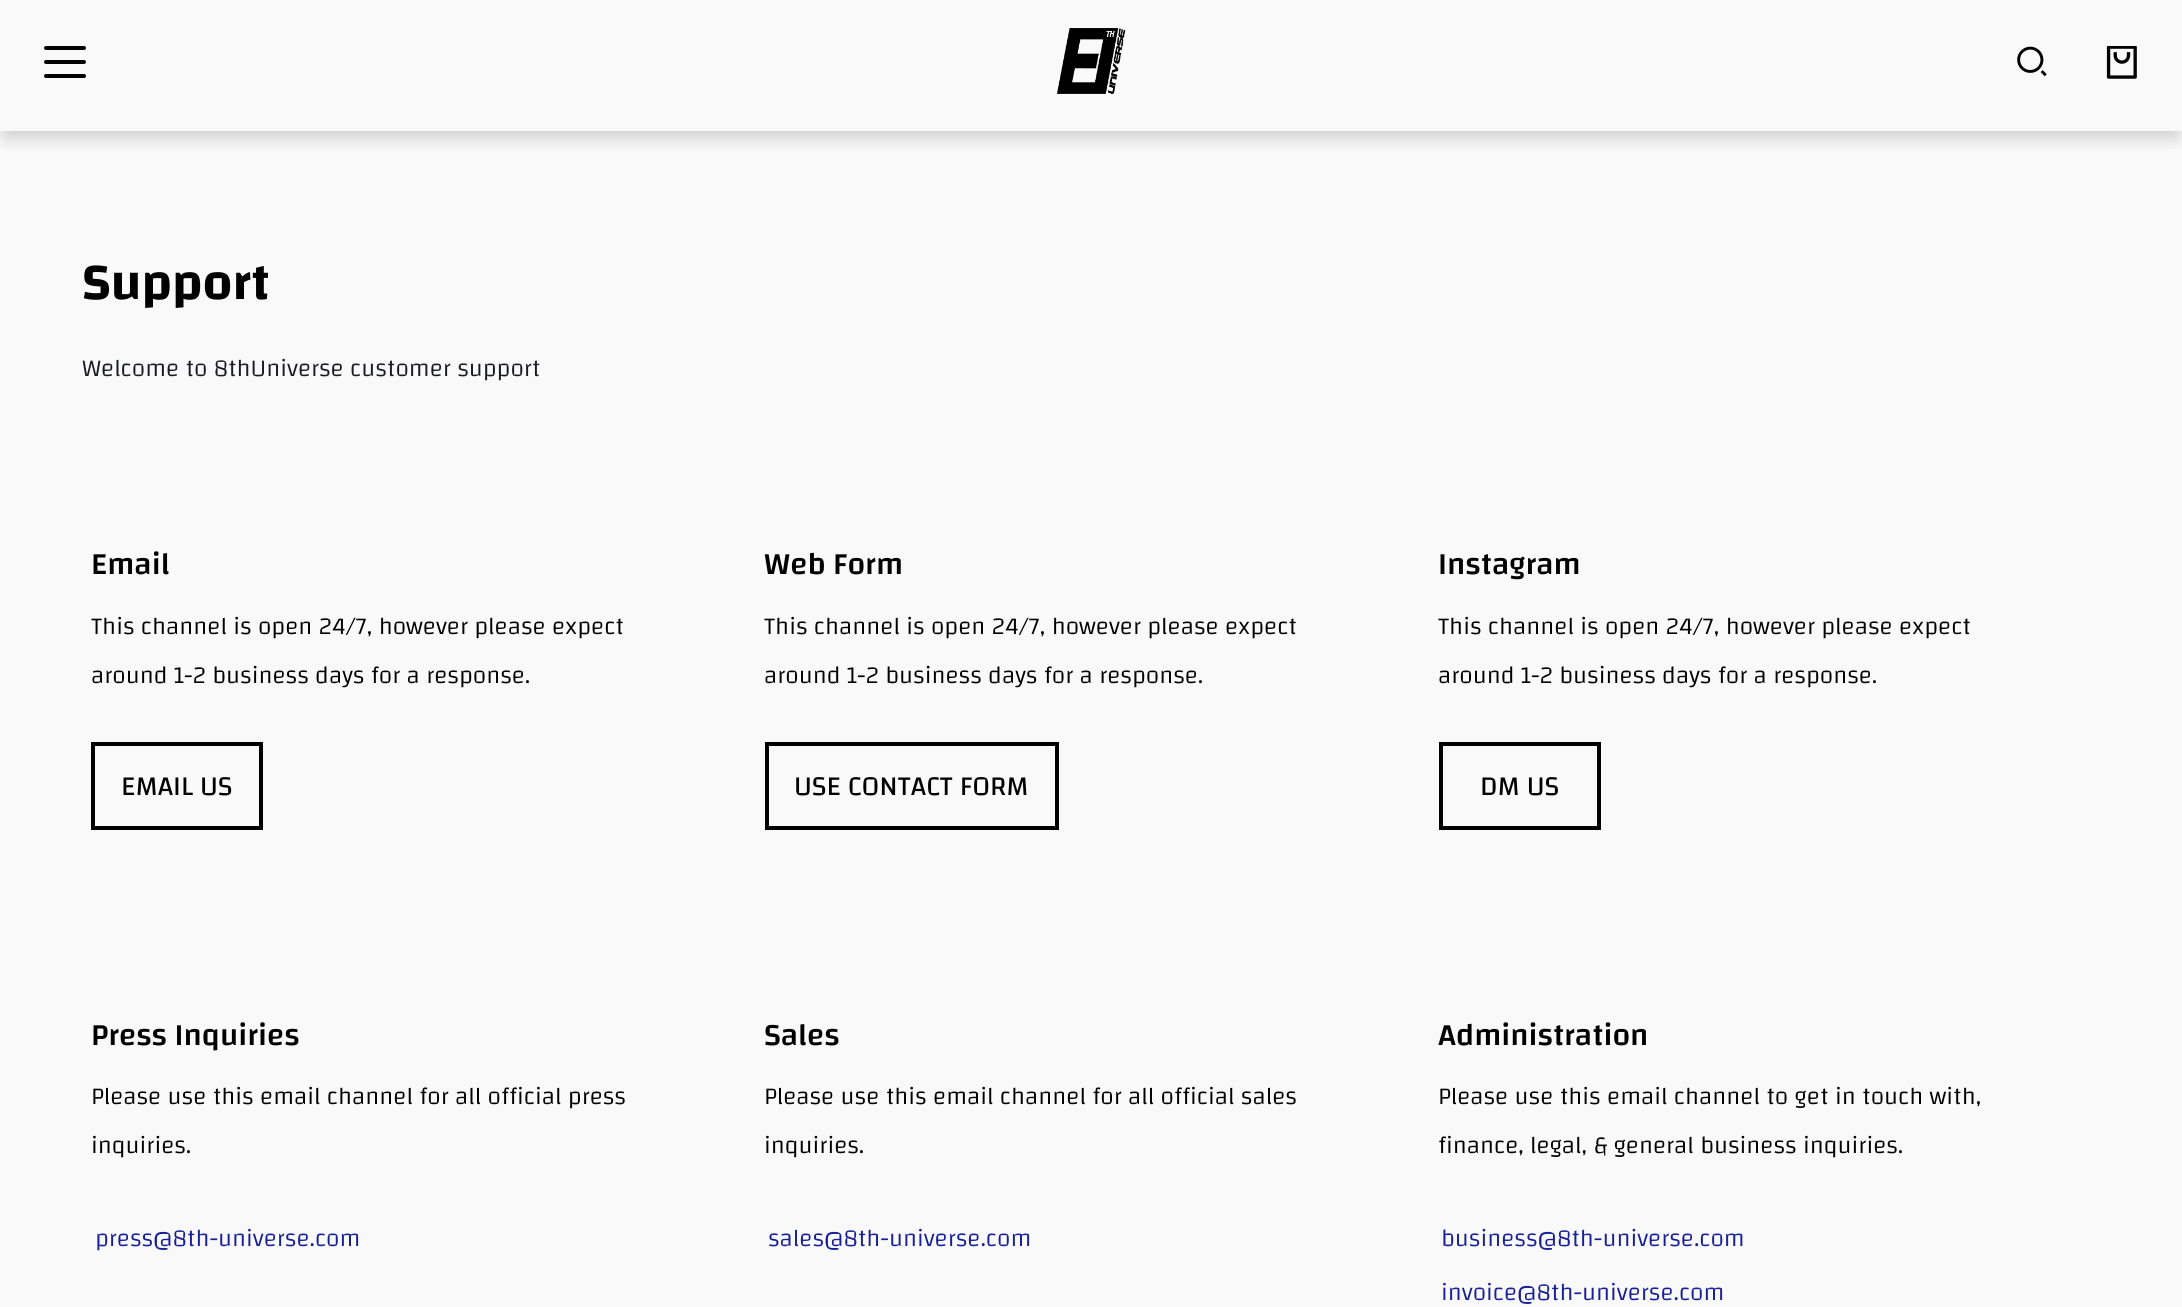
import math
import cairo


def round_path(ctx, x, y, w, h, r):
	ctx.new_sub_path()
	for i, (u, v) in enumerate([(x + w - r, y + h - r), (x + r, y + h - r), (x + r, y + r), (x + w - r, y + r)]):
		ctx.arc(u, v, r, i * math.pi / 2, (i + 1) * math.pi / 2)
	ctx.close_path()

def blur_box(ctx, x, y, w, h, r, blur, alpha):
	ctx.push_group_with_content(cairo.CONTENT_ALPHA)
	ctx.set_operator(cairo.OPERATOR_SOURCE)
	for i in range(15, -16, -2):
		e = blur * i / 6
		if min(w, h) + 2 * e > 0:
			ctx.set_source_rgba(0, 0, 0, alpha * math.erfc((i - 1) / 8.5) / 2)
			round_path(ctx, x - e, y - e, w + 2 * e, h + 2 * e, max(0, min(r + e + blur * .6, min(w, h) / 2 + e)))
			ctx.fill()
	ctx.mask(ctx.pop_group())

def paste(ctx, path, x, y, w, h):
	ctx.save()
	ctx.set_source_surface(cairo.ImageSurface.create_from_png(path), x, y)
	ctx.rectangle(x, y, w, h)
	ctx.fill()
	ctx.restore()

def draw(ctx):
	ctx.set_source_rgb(0.973, 0.976, 0.98)
	ctx.paint()
	ctx.save()
	ctx.rectangle(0, 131, 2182, 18)
	ctx.clip()
	ctx.set_source_rgb(0, 0, 0)
	blur_box(ctx, 5, 16, 2172, 121, 0, 9.5, 0.19)
	ctx.restore()
	ctx.set_source_rgb(0, 0, 0)
	round_path(ctx, 44, 46, 42, 4, 2)
	ctx.fill()
	round_path(ctx, 44, 60, 42, 4, 2)
	ctx.fill()
	round_path(ctx, 44, 74, 42, 4, 2)
	ctx.fill()
	paste(ctx, 'media/1.png', 1057, 28, 69, 66)
	paste(ctx, 'media/2.png', 2017, 46, 30, 31)
	paste(ctx, 'media/3.png', 2106, 46, 31, 33)
	ctx.select_font_face('Changa SemiBold')
	ctx.set_font_size(52.5)
	ctx.move_to(82, 299)
	ctx.show_text('Support')
	ctx.select_font_face('Changa Light')
	ctx.set_font_size(24.5)
	ctx.set_source_rgb(0.102, 0.106, 0.122)
	ctx.move_to(82, 376)
	ctx.show_text('Welcome to 8thUniverse customer support')
	ctx.select_font_face('Changa Medium')
	ctx.set_font_size(31.5)
	ctx.set_source_rgb(0, 0, 0)
	ctx.move_to(91, 574)
	ctx.show_text('Email')
	ctx.select_font_face('Changa Light')
	ctx.set_font_size(24.5)
	ctx.move_to(91, 634)
	ctx.show_text('This channel is open 24/7, however please expect')
	ctx.move_to(91, 683)
	ctx.show_text('around 1-2 business days for a response.')
	ctx.rectangle(93, 744, 168, 84)
	ctx.set_line_width(4)
	ctx.stroke()
	ctx.select_font_face('Changa')
	ctx.set_font_size(28)
	ctx.move_to(121, 795)
	ctx.show_text('EMAIL US')
	ctx.select_font_face('Changa Medium')
	ctx.set_font_size(31.5)
	ctx.move_to(764, 574)
	ctx.show_text('Web Form')
	ctx.select_font_face('Changa Light')
	ctx.set_font_size(24.5)
	ctx.move_to(764, 634)
	ctx.show_text('This channel is open 24/7, however please expect')
	ctx.move_to(764, 683)
	ctx.show_text('around 1-2 business days for a response.')
	ctx.rectangle(767, 744, 290, 84)
	ctx.stroke()
	ctx.select_font_face('Changa')
	ctx.set_font_size(28)
	ctx.move_to(794, 795)
	ctx.show_text('USE CONTACT FORM')
	ctx.select_font_face('Changa Medium')
	ctx.set_font_size(31.5)
	ctx.move_to(1438, 574)
	ctx.show_text('Instagram')
	ctx.select_font_face('Changa Light')
	ctx.set_font_size(24.5)
	ctx.move_to(1438, 634)
	ctx.show_text('This channel is open 24/7, however please expect')
	ctx.move_to(1438, 683)
	ctx.show_text('around 1-2 business days for a response.')
	ctx.rectangle(1441, 744, 158, 84)
	ctx.stroke()
	ctx.select_font_face('Changa')
	ctx.set_font_size(28)
	ctx.move_to(1480, 795)
	ctx.show_text('DM US')
	ctx.select_font_face('Changa Medium')
	ctx.set_font_size(31.5)
	ctx.move_to(91, 1045)
	ctx.show_text('Press Inquiries')
	ctx.select_font_face('Changa Light')
	ctx.set_font_size(24.5)
	ctx.move_to(91, 1104)
	ctx.show_text('Please use this email channel for all official press')
	ctx.move_to(91, 1153)
	ctx.show_text('inquiries.')
	ctx.set_source_rgb(0.094, 0.125, 0.584)
	ctx.move_to(95, 1246)
	ctx.show_text('press@8th-universe.com')
	ctx.select_font_face('Changa Medium')
	ctx.set_font_size(31.5)
	ctx.set_source_rgb(0, 0, 0)
	ctx.move_to(764, 1045)
	ctx.show_text('Sales')
	ctx.select_font_face('Changa Light')
	ctx.set_font_size(24.5)
	ctx.move_to(764, 1104)
	ctx.show_text('Please use this email channel for all official sales')
	ctx.move_to(764, 1153)
	ctx.show_text('inquiries.')
	ctx.set_source_rgb(0.094, 0.125, 0.584)
	ctx.move_to(768, 1246)
	ctx.show_text('sales@8th-universe.com')
	ctx.select_font_face('Changa Medium')
	ctx.set_font_size(31.5)
	ctx.set_source_rgb(0, 0, 0)
	ctx.move_to(1438, 1045)
	ctx.show_text('Administration')
	ctx.select_font_face('Changa Light')
	ctx.set_font_size(24.5)
	ctx.move_to(1438, 1104)
	ctx.show_text('Please use this email channel to get in touch with,')
	ctx.move_to(1438, 1153)
	ctx.show_text('finance, legal, & general business inquiries.')
	ctx.set_source_rgb(0.094, 0.125, 0.584)
	ctx.move_to(1441, 1246)
	ctx.show_text('business@8th-universe.com')
	ctx.move_to(1441, 1300)
	ctx.show_text('invoice@8th-universe.com')


surface = cairo.ImageSurface(cairo.FORMAT_RGB24, 2182, 1307)
ctx = cairo.Context(surface)
options = cairo.FontOptions()
options.set_hint_metrics(cairo.HINT_METRICS_OFF)
options.set_hint_style(cairo.HINT_STYLE_NONE)
ctx.set_font_options(options)
ctx.set_miter_limit(4)
draw(ctx)
surface.write_to_png('image.png')
